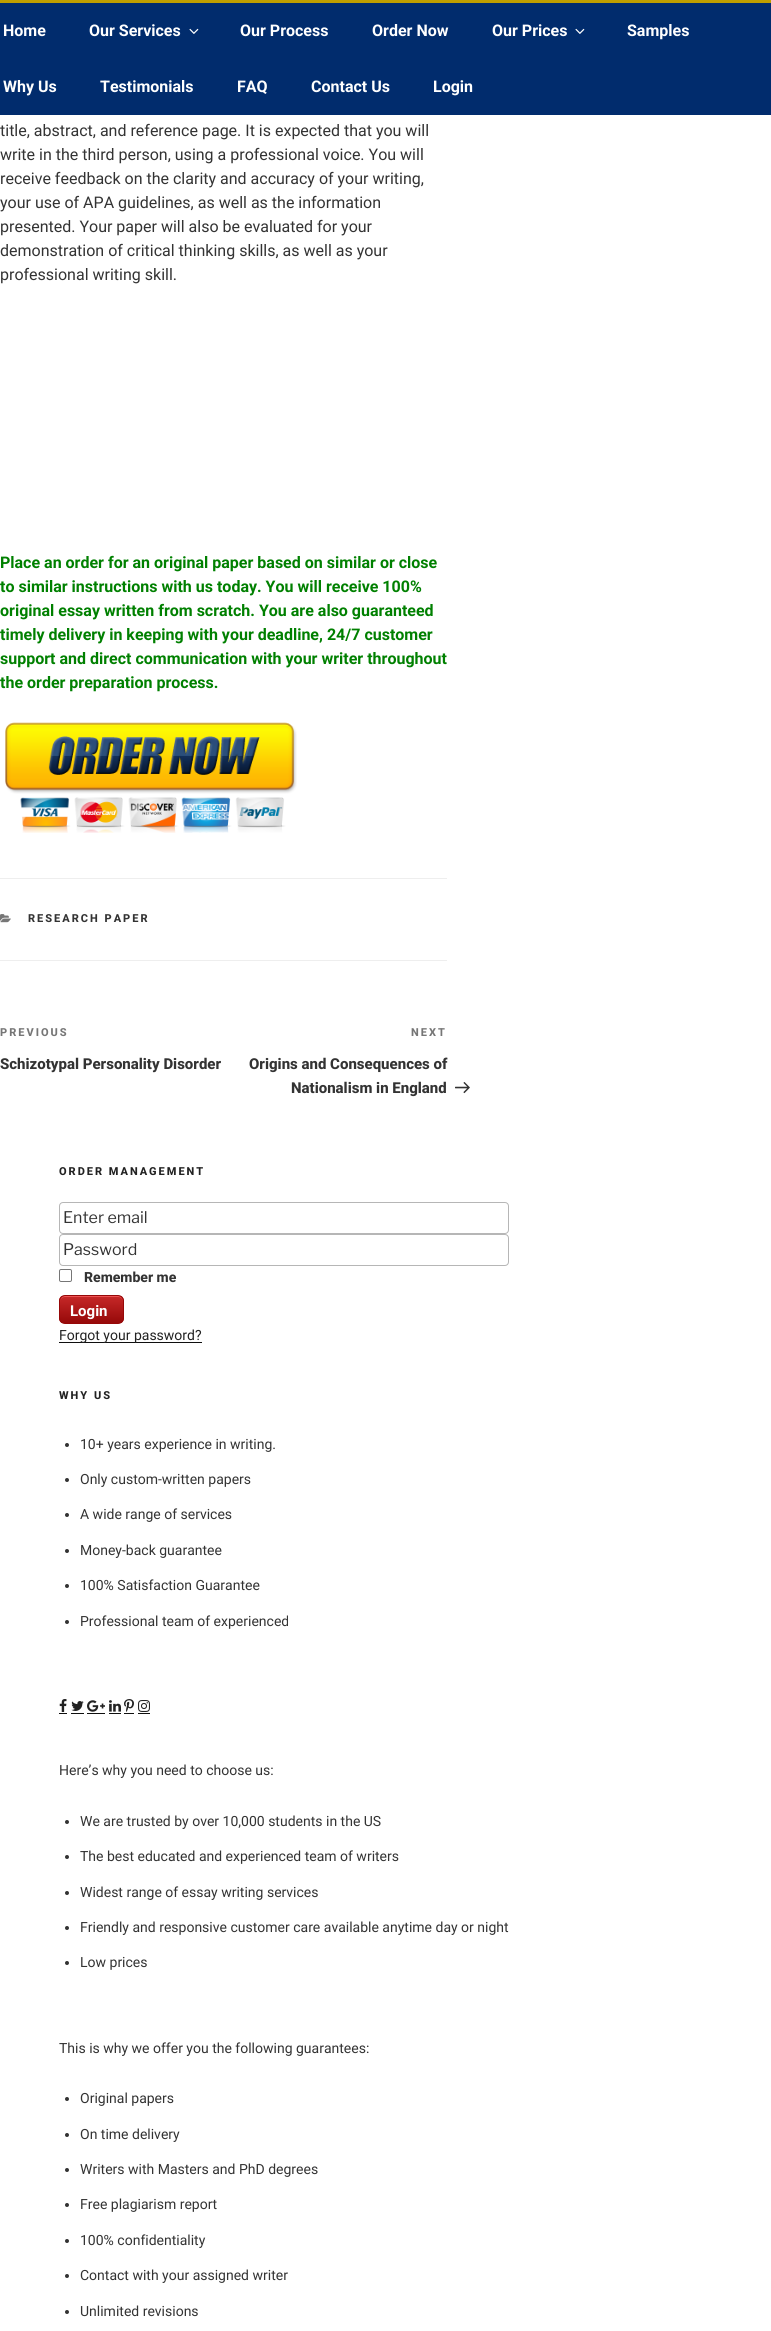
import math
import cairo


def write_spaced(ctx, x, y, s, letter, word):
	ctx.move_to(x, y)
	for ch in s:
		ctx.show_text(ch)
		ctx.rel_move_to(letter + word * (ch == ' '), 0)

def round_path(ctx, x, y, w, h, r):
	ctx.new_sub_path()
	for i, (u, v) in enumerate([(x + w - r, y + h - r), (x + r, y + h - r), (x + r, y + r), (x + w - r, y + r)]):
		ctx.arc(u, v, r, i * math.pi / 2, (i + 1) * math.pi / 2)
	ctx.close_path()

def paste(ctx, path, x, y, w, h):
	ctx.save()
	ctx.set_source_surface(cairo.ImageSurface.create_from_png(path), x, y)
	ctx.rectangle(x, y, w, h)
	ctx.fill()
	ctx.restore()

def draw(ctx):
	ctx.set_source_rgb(1, 1, 1)
	ctx.paint()
	ctx.set_source_rgb(0.004, 0.173, 0.427)
	ctx.rectangle(0, 3, 771, 112)
	ctx.fill()
	ctx.set_source_rgb(0.749, 0.624, 0)
	ctx.rectangle(0, 0, 771, 3)
	ctx.fill()
	ctx.select_font_face('Roboto', cairo.FONT_SLANT_NORMAL, cairo.FONT_WEIGHT_BOLD)
	ctx.set_font_size(16)
	ctx.set_source_rgb(1, 1, 1)
	ctx.move_to(3, 36)
	ctx.show_text('Home')
	ctx.move_to(89, 36)
	ctx.show_text('Our Services')
	paste(ctx, 'media/1.png', 189, 28, 10, 6)
	for x, y, s in [
		(240, 36, 'Our Process'),
		(372, 36, 'Order Now'),
		(492, 36, 'Our Prices'),
	]:
		ctx.move_to(x, y)
		ctx.show_text(s)
	paste(ctx, 'media/1.png', 575, 28, 10, 6)
	for x, y, s in [
		(627, 36, 'Samples'),
		(3, 92, 'Why Us'),
		(100, 92, 'Testimonials'),
		(237, 92, 'FAQ'),
		(311, 92, 'Contact Us'),
		(433, 92, 'Login'),
	]:
		ctx.move_to(x, y)
		ctx.show_text(s)
	ctx.select_font_face('Roboto')
	ctx.set_source_rgb(0.2, 0.2, 0.2)
	for x, y, s in [
		(0, 136, 'title, abstract, and reference page. It is expected that you will'),
		(0, 160, 'write in the third person, using a professional voice. You will'),
		(0, 184, 'receive feedback on the clarity and accuracy of your writing,'),
		(0, 208, 'your use of APA guidelines, as well as the information'),
		(0, 232, 'presented. Your paper will also be evaluated for your'),
		(0, 256, 'demonstration of critical thinking skills, as well as your'),
		(0, 280, 'professional writing skill.'),
	]:
		ctx.move_to(x, y)
		ctx.show_text(s)
	ctx.select_font_face('Roboto', cairo.FONT_SLANT_NORMAL, cairo.FONT_WEIGHT_BOLD)
	ctx.set_source_rgb(0, 0.502, 0)
	for x, y, s in [
		(0, 568, 'Place an order for an original paper based on similar or close'),
		(0, 592, 'to similar instructions with us today. You will receive 100%'),
		(0, 616, 'original essay written from scratch. You are also guaranteed'),
		(0, 640, 'timely delivery in keeping with your deadline, 24/7 customer'),
		(0, 664, 'support and direct communication with your writer throughout'),
		(0, 688, 'the order preparation process.'),
	]:
		ctx.move_to(x, y)
		ctx.show_text(s)
	paste(ctx, 'media/2.png', 5, 722, 292, 111)
	ctx.set_source_rgb(0.933, 0.933, 0.933)
	ctx.rectangle(0, 878, 447, 1)
	ctx.fill()
	ctx.rectangle(0, 960, 447, 1)
	ctx.fill()
	paste(ctx, 'media/3.png', 0, 914, 11, 9)
	ctx.select_font_face('Roboto ExtraBold')
	ctx.set_font_size(11)
	ctx.set_source_rgb(0.2, 0.2, 0.2)
	write_spaced(ctx, 28, 922, 'RESEARCH PAPER', 2, 0)
	ctx.set_source_rgb(0.463, 0.463, 0.463)
	write_spaced(ctx, 0, 1036, 'PREVIOUS', 2, 0)
	ctx.set_font_size(15)
	ctx.set_source_rgb(0.2, 0.2, 0.2)
	ctx.move_to(0, 1069)
	ctx.show_text('Schizotypal Personality Disorder')
	ctx.set_font_size(11)
	ctx.set_source_rgb(0.463, 0.463, 0.463)
	write_spaced(ctx, 411, 1036, 'NEXT', 2, 0)
	ctx.set_font_size(15)
	ctx.set_source_rgb(0.2, 0.2, 0.2)
	ctx.move_to(249, 1069)
	ctx.show_text('Origins and Consequences of')
	ctx.move_to(291, 1093)
	ctx.show_text('Nationalism in England')
	paste(ctx, 'media/4.png', 455, 1082, 15, 12)
	ctx.set_font_size(11)
	ctx.set_source_rgb(0.133, 0.133, 0.133)
	write_spaced(ctx, 59, 1175, 'ORDER MANAGEMENT', 2, 0)
	round_path(ctx, 59.5, 1202.5, 449, 31, 3.5)
	ctx.set_source_rgb(0.714, 0.714, 0.714)
	ctx.set_line_width(1)
	ctx.stroke()
	ctx.select_font_face('Libre Franklin')
	ctx.set_font_size(16)
	ctx.set_source_rgb(0.2, 0.2, 0.2)
	ctx.move_to(63, 1223)
	ctx.show_text('Enter email')
	round_path(ctx, 59.5, 1234.5, 449, 31, 3.5)
	ctx.set_source_rgb(0.714, 0.714, 0.714)
	ctx.stroke()
	ctx.set_source_rgb(0.2, 0.2, 0.2)
	ctx.move_to(63, 1255)
	ctx.show_text('Password')
	round_path(ctx, 59.5, 1269.5, 12, 12, 1.5)
	ctx.set_source_rgb(0.463, 0.463, 0.463)
	ctx.stroke()
	ctx.select_font_face('Roboto ExtraBold')
	ctx.set_font_size(14)
	ctx.set_source_rgb(0.2, 0.2, 0.2)
	ctx.move_to(84, 1282)
	ctx.show_text('Remember me')
	ctx.save()
	round_path(ctx, 59, 1295, 65, 29, 6)
	ctx.clip()
	gradient = cairo.LinearGradient(60, 1296, 60, 1323)
	gradient.add_color_stop_rgba(0.05, 0.769, 0.153, 0.153, 1)
	gradient.add_color_stop_rgba(1, 0.588, 0.035, 0.035, 1)
	ctx.set_source(gradient)
	ctx.rectangle(59, 1296, 65, 27)
	ctx.fill()
	ctx.restore()
	ctx.set_source_rgb(0.933, 0.325, 0.325)
	ctx.new_path()
	ctx.move_to(65, 1297)
	ctx.line_to(118, 1297)
	ctx.curve_to(121, 1297, 123, 1299, 123, 1302)
	ctx.curve_to(123, 1294, 115, 1296, 109, 1296)
	ctx.line_to(74, 1296)
	ctx.curve_to(68, 1296, 60, 1294, 60, 1302)
	ctx.curve_to(60, 1299, 62, 1297, 65, 1297)
	ctx.close_path()
	ctx.fill()
	round_path(ctx, 59.5, 1295.5, 64, 28, 5.5)
	ctx.set_source_rgb(0.588, 0.035, 0.035)
	ctx.stroke()
	ctx.select_font_face('Roboto', cairo.FONT_SLANT_NORMAL, cairo.FONT_WEIGHT_BOLD)
	ctx.set_font_size(15)
	ctx.set_source_rgb(1, 1, 1)
	ctx.move_to(70, 1316)
	ctx.show_text('Login')
	ctx.set_source_rgb(0.059, 0.059, 0.059)
	ctx.rectangle(59, 1342, 143, 1)
	ctx.fill()
	ctx.select_font_face('Roboto')
	ctx.set_font_size(14)
	ctx.set_source_rgb(0.133, 0.133, 0.133)
	ctx.move_to(59, 1340)
	ctx.show_text('Forgot your password?')
	ctx.select_font_face('Roboto ExtraBold')
	ctx.set_font_size(11)
	write_spaced(ctx, 59, 1399, 'WHY US', 2, 0)
	ctx.set_source_rgb(0.2, 0.2, 0.2)
	ctx.new_path()
	ctx.arc(67, 1445, 2, 0, 2 * math.pi)
	ctx.fill()
	ctx.select_font_face('Roboto')
	ctx.set_font_size(14)
	ctx.move_to(80, 1449)
	ctx.show_text('10+ years experience in writing.')
	ctx.new_path()
	ctx.arc(67, 1480, 2, 0, 2 * math.pi)
	ctx.fill()
	ctx.move_to(80, 1484)
	ctx.show_text('Only custom-written papers')
	ctx.new_path()
	ctx.arc(67, 1515, 2, 0, 2 * math.pi)
	ctx.fill()
	ctx.move_to(80, 1519)
	ctx.show_text('A wide range of services')
	ctx.new_path()
	ctx.arc(67, 1551, 2, 0, 2 * math.pi)
	ctx.fill()
	ctx.move_to(80, 1555)
	ctx.show_text('Money-back guarantee')
	ctx.new_path()
	ctx.arc(67, 1586, 2, 0, 2 * math.pi)
	ctx.fill()
	ctx.move_to(80, 1590)
	ctx.show_text('100% Satisfaction Guarantee')
	ctx.new_path()
	ctx.arc(67, 1622, 2, 0, 2 * math.pi)
	ctx.fill()
	ctx.move_to(80, 1626)
	ctx.show_text('Professional team of experienced')
	ctx.set_source_rgb(0.059, 0.059, 0.059)
	ctx.rectangle(59, 1713, 8, 1)
	ctx.fill()
	paste(ctx, 'media/5.png', 59, 1699, 8, 13)
	ctx.rectangle(71, 1713, 13, 1)
	ctx.fill()
	paste(ctx, 'media/6.png', 71, 1701, 13, 10)
	ctx.rectangle(87, 1713, 18, 1)
	ctx.fill()
	paste(ctx, 'media/7.png', 87, 1700, 18, 12)
	ctx.rectangle(109, 1713, 12, 1)
	ctx.fill()
	paste(ctx, 'media/8.png', 109, 1700, 12, 12)
	ctx.rectangle(124, 1713, 10, 1)
	ctx.fill()
	paste(ctx, 'media/9.png', 124, 1699, 10, 13)
	ctx.rectangle(138, 1713, 12, 1)
	ctx.fill()
	paste(ctx, 'media/10.png', 138, 1700, 12, 12)
	ctx.set_source_rgb(0.2, 0.2, 0.2)
	ctx.move_to(59, 1775)
	ctx.show_text('Here’s why you need to choose us:')
	ctx.new_path()
	ctx.arc(67, 1822, 2, 0, 2 * math.pi)
	ctx.fill()
	ctx.move_to(80, 1826)
	ctx.show_text('We are trusted by over 10,000 students in the US')
	ctx.new_path()
	ctx.arc(67, 1857, 2, 0, 2 * math.pi)
	ctx.fill()
	ctx.move_to(80, 1861)
	ctx.show_text('The best educated and experienced team of writers')
	ctx.new_path()
	ctx.arc(67, 1893, 2, 0, 2 * math.pi)
	ctx.fill()
	ctx.move_to(80, 1897)
	ctx.show_text('Widest range of essay writing services')
	ctx.new_path()
	ctx.arc(67, 1928, 2, 0, 2 * math.pi)
	ctx.fill()
	ctx.move_to(80, 1932)
	ctx.show_text('Friendly and responsive customer care available anytime day or night')
	ctx.new_path()
	ctx.arc(67, 1963, 2, 0, 2 * math.pi)
	ctx.fill()
	ctx.move_to(80, 1967)
	ctx.show_text('Low prices')
	ctx.move_to(59, 2053)
	ctx.show_text('This is why we offer you the following guarantees:')
	ctx.new_path()
	ctx.arc(67, 2099, 2, 0, 2 * math.pi)
	ctx.fill()
	ctx.move_to(80, 2103)
	ctx.show_text('Original papers')
	ctx.new_path()
	ctx.arc(67, 2135, 2, 0, 2 * math.pi)
	ctx.fill()
	ctx.move_to(80, 2139)
	ctx.show_text('On time delivery')
	ctx.new_path()
	ctx.arc(67, 2170, 2, 0, 2 * math.pi)
	ctx.fill()
	ctx.move_to(80, 2174)
	ctx.show_text('Writers with Masters and PhD degrees')
	ctx.new_path()
	ctx.arc(67, 2205, 2, 0, 2 * math.pi)
	ctx.fill()
	ctx.move_to(80, 2209)
	ctx.show_text('Free plagiarism report')
	ctx.new_path()
	ctx.arc(67, 2241, 2, 0, 2 * math.pi)
	ctx.fill()
	ctx.move_to(80, 2245)
	ctx.show_text('100% confidentiality')
	ctx.new_path()
	ctx.arc(67, 2276, 2, 0, 2 * math.pi)
	ctx.fill()
	ctx.move_to(80, 2280)
	ctx.show_text('Contact with your assigned writer')
	ctx.new_path()
	ctx.arc(67, 2312, 2, 0, 2 * math.pi)
	ctx.fill()
	ctx.move_to(80, 2316)
	ctx.show_text('Unlimited revisions')


surface = cairo.ImageSurface(cairo.FORMAT_RGB24, 771, 2331)
ctx = cairo.Context(surface)
options = cairo.FontOptions()
options.set_hint_metrics(cairo.HINT_METRICS_OFF)
options.set_hint_style(cairo.HINT_STYLE_NONE)
ctx.set_font_options(options)
ctx.set_miter_limit(4)
draw(ctx)
surface.write_to_png('image.png')
